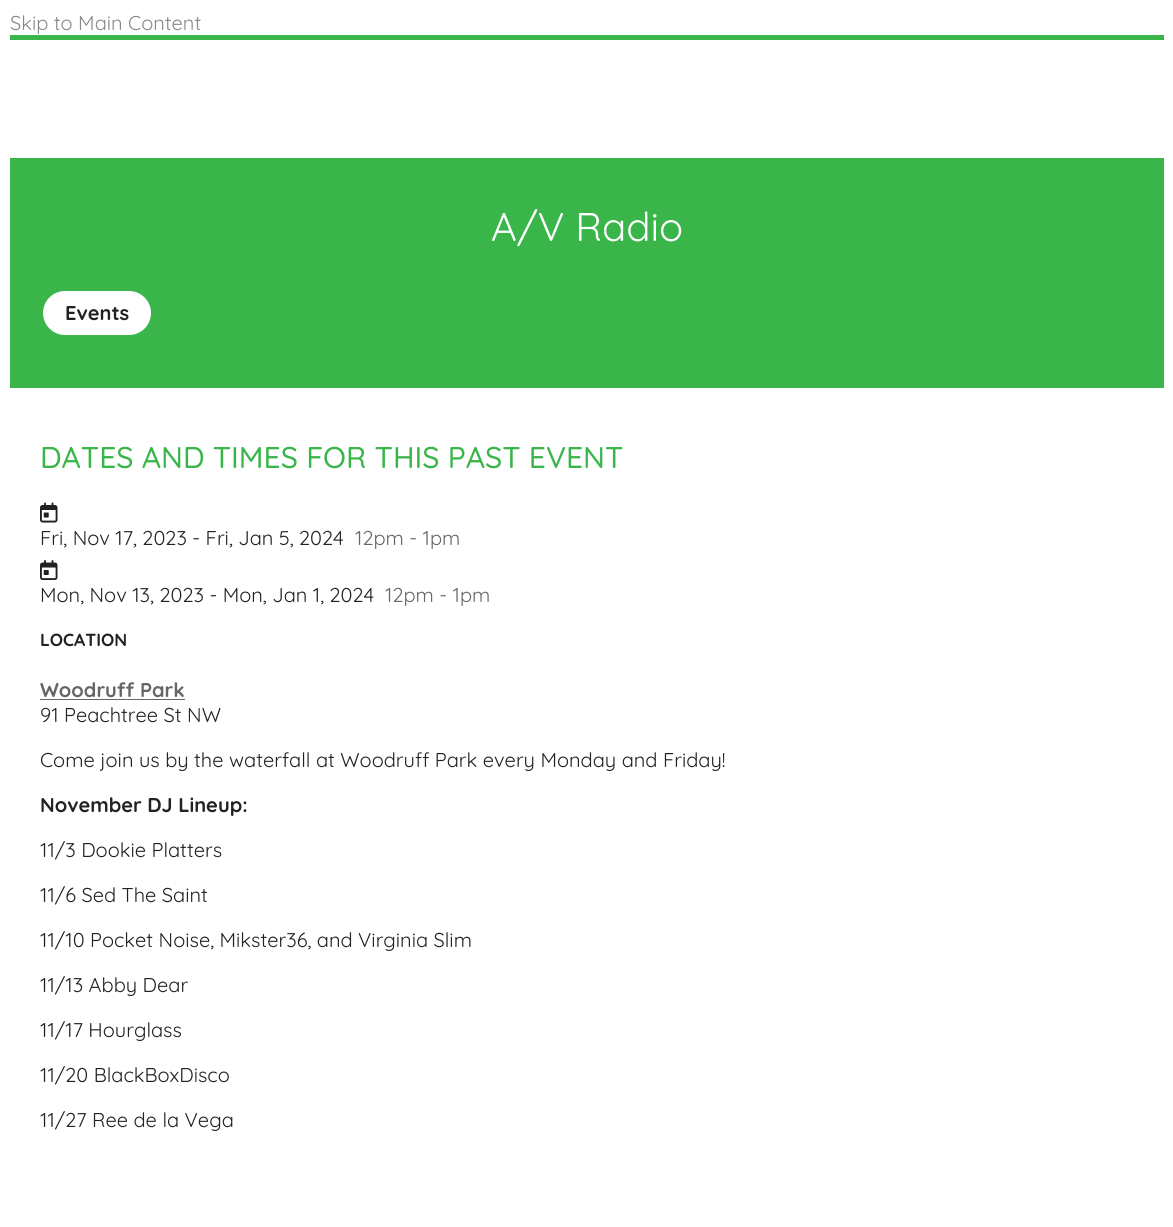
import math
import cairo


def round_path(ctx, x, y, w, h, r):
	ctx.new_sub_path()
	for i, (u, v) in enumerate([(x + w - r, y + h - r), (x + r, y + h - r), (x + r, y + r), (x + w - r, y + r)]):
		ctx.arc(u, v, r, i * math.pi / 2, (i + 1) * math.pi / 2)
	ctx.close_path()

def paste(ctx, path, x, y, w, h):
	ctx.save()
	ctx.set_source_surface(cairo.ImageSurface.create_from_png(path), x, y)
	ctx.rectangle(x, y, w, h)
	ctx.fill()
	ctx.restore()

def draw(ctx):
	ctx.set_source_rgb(1, 1, 1)
	ctx.paint()
	ctx.select_font_face('Quicksand')
	ctx.set_font_size(20)
	ctx.set_source_rgb(0.533, 0.533, 0.533)
	ctx.move_to(10, 30)
	ctx.show_text('Skip to Main Content')
	ctx.set_source_rgb(0.224, 0.71, 0.29)
	ctx.rectangle(10, 35, 1154, 5)
	ctx.fill()
	ctx.rectangle(10, 158, 1154, 230)
	ctx.fill()
	ctx.set_font_size(40)
	ctx.set_source_rgb(1, 1, 1)
	ctx.move_to(491, 241)
	ctx.show_text('A/V Radio')
	round_path(ctx, 43, 291, 108, 44, 22)
	ctx.fill()
	ctx.select_font_face('Quicksand', cairo.FONT_SLANT_NORMAL, cairo.FONT_WEIGHT_BOLD)
	ctx.set_font_size(20)
	ctx.set_source_rgb(0.133, 0.133, 0.133)
	ctx.move_to(65, 320)
	ctx.show_text('Events')
	ctx.select_font_face('Quicksand Medium')
	ctx.set_font_size(30)
	ctx.set_source_rgb(0.224, 0.71, 0.29)
	ctx.move_to(40, 468)
	ctx.show_text('DATES AND TIMES FOR THIS PAST EVENT')
	paste(ctx, 'media/1.png', 40, 502, 18, 21)
	ctx.select_font_face('Quicksand')
	ctx.set_font_size(20)
	ctx.set_source_rgb(0.133, 0.133, 0.133)
	ctx.move_to(40, 545)
	ctx.show_text('Fri, Nov 17, 2023 - Fri, Jan 5, 2024')
	ctx.set_source_rgb(0.4, 0.4, 0.4)
	ctx.move_to(355, 545)
	ctx.show_text('12pm - 1pm')
	paste(ctx, 'media/2.png', 40, 560, 18, 20)
	ctx.set_source_rgb(0.133, 0.133, 0.133)
	ctx.move_to(40, 602)
	ctx.show_text('Mon, Nov 13, 2023 - Mon, Jan 1, 2024')
	ctx.set_source_rgb(0.4, 0.4, 0.4)
	ctx.move_to(385, 602)
	ctx.show_text('12pm - 1pm')
	ctx.select_font_face('Quicksand', cairo.FONT_SLANT_NORMAL, cairo.FONT_WEIGHT_BOLD)
	ctx.set_font_size(17.5)
	ctx.set_source_rgb(0.133, 0.133, 0.133)
	ctx.move_to(40, 646)
	ctx.show_text('LOCATION')
	ctx.set_font_size(20)
	ctx.set_source_rgb(0.4, 0.4, 0.4)
	ctx.move_to(40, 697)
	ctx.show_text('Woodruff Park')
	ctx.rectangle(40, 699, 145, 1)
	ctx.fill()
	ctx.select_font_face('Quicksand')
	ctx.set_source_rgb(0.133, 0.133, 0.133)
	ctx.move_to(40, 722)
	ctx.show_text('91 Peachtree St NW')
	ctx.move_to(40, 767)
	ctx.show_text('Come join us by the waterfall at Woodruff Park every Monday and Friday!')
	ctx.select_font_face('Quicksand', cairo.FONT_SLANT_NORMAL, cairo.FONT_WEIGHT_BOLD)
	ctx.move_to(40, 812)
	ctx.show_text('November DJ Lineup:')
	ctx.select_font_face('Quicksand')
	for x, y, s in [
		(40, 857, '11/3 Dookie Platters'),
		(40, 902, '11/6 Sed The Saint'),
		(40, 947, '11/10 Pocket Noise, Mikster36, and Virginia Slim'),
		(40, 992, '11/13 Abby Dear'),
		(40, 1037, '11/17 Hourglass'),
		(40, 1082, '11/20 BlackBoxDisco'),
		(40, 1127, '11/27 Ree de la Vega'),
	]:
		ctx.move_to(x, y)
		ctx.show_text(s)


surface = cairo.ImageSurface(cairo.FORMAT_RGB24, 1173, 1227)
ctx = cairo.Context(surface)
options = cairo.FontOptions()
options.set_hint_metrics(cairo.HINT_METRICS_OFF)
options.set_hint_style(cairo.HINT_STYLE_NONE)
ctx.set_font_options(options)
ctx.set_miter_limit(4)
draw(ctx)
surface.write_to_png('image.png')
